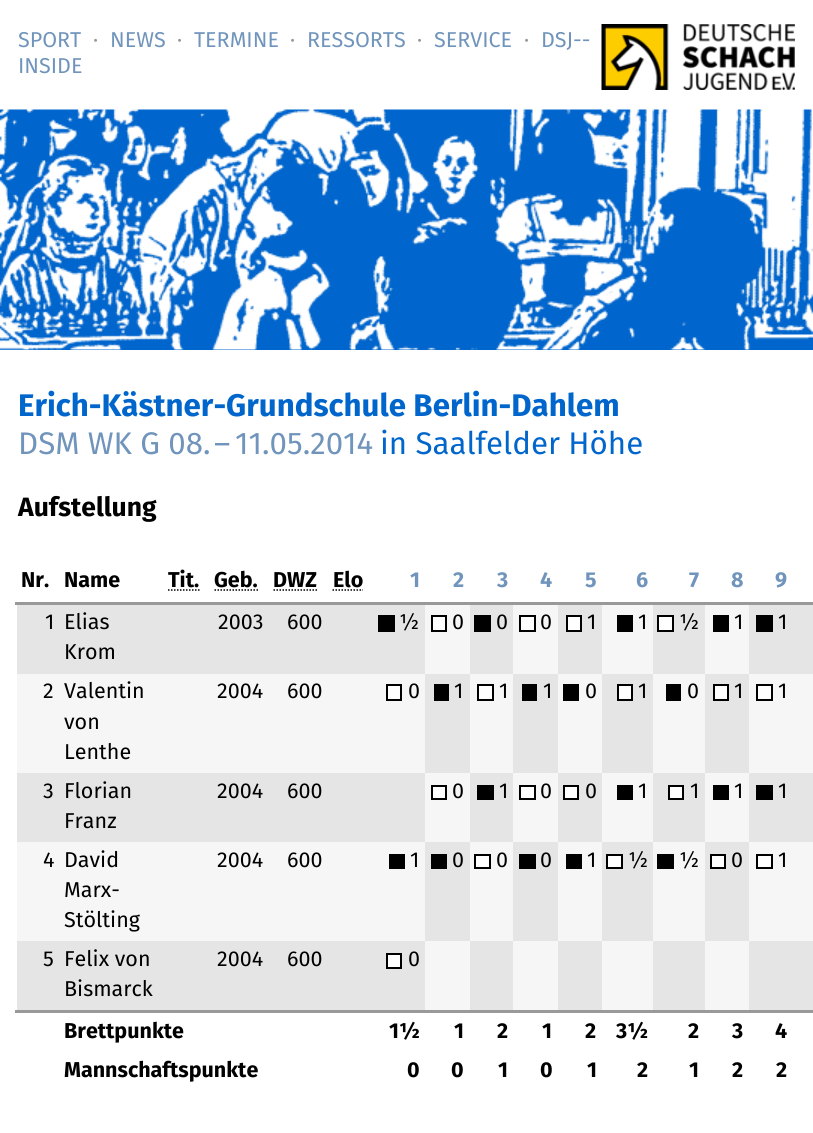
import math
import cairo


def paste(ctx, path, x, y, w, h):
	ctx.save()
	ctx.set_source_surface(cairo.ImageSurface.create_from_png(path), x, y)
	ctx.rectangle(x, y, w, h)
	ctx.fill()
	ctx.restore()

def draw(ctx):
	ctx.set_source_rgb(1, 1, 1)
	ctx.paint()
	ctx.select_font_face('Fira Sans')
	ctx.set_font_size(21.5)
	ctx.set_source_rgb(0.439, 0.58, 0.733)
	ctx.move_to(18, 47)
	ctx.show_text('SPORT')
	ctx.set_source_rgb(0.6, 0.6, 0.6)
	ctx.move_to(93, 47)
	ctx.show_text('·')
	ctx.set_source_rgb(0.439, 0.58, 0.733)
	ctx.move_to(110, 47)
	ctx.show_text('NEWS')
	ctx.set_source_rgb(0.6, 0.6, 0.6)
	ctx.move_to(177, 47)
	ctx.show_text('·')
	ctx.set_source_rgb(0.439, 0.58, 0.733)
	ctx.move_to(194, 47)
	ctx.show_text('TERMINE')
	ctx.set_source_rgb(0.6, 0.6, 0.6)
	ctx.move_to(290, 47)
	ctx.show_text('·')
	ctx.set_source_rgb(0.439, 0.58, 0.733)
	ctx.move_to(307, 47)
	ctx.show_text('RESSORTS')
	ctx.set_source_rgb(0.6, 0.6, 0.6)
	ctx.move_to(417, 47)
	ctx.show_text('·')
	ctx.set_source_rgb(0.439, 0.58, 0.733)
	ctx.move_to(434, 47)
	ctx.show_text('SERVICE')
	ctx.set_source_rgb(0.6, 0.6, 0.6)
	ctx.move_to(524, 47)
	ctx.show_text('·')
	ctx.set_source_rgb(0.439, 0.58, 0.733)
	ctx.move_to(541, 47)
	ctx.show_text('DSJ--')
	ctx.move_to(18, 73)
	ctx.show_text('INSIDE')
	paste(ctx, 'media/1.png', 601, 24, 194, 66)
	ctx.set_source_rgb(0, 0.4, 0.8)
	ctx.rectangle(0, 349, 813, 1)
	ctx.fill()
	paste(ctx, 'media/2.png', 0, 109, 813, 241)
	ctx.select_font_face('Fira Sans', cairo.FONT_SLANT_NORMAL, cairo.FONT_WEIGHT_BOLD)
	ctx.set_font_size(31.25)
	ctx.move_to(18, 416)
	ctx.show_text('Erich-Kästner-Grundschule Berlin-Dahlem')
	ctx.select_font_face('Fira Sans')
	ctx.set_source_rgb(0.439, 0.58, 0.733)
	for x, y, s in [
		(18, 454, 'DSM WK G 08.'),
		(214, 454, '–'),
		(235, 454, '11.05.2014'),
	]:
		ctx.move_to(x, y)
		ctx.show_text(s)
	ctx.set_source_rgb(0, 0.4, 0.8)
	ctx.move_to(380, 454)
	ctx.show_text('in Saalfelder Höhe')
	ctx.select_font_face('Fira Sans', cairo.FONT_SLANT_NORMAL, cairo.FONT_WEIGHT_BOLD)
	ctx.set_font_size(26.5)
	ctx.set_source_rgb(0, 0, 0)
	ctx.move_to(18, 516)
	ctx.show_text('Aufstellung')
	ctx.set_font_size(21.5)
	for x, y, s in [
		(21, 587, 'Nr.'),
		(64, 587, 'Name'),
		(168, 587, 'Tit.'),
	]:
		ctx.move_to(x, y)
		ctx.show_text(s)
	ctx.new_path()
	ctx.move_to(168, 590)
	ctx.line_to(199.5, 590)
	ctx.set_line_width(1.5)
	ctx.set_dash([1.5, 1.5])
	ctx.stroke()
	ctx.move_to(214, 587)
	ctx.show_text('Geb.')
	ctx.new_path()
	ctx.move_to(214.5, 590)
	ctx.line_to(258.5, 590)
	ctx.stroke()
	ctx.move_to(273, 587)
	ctx.show_text('DWZ')
	ctx.new_path()
	ctx.move_to(273.5, 590)
	ctx.line_to(317.5, 590)
	ctx.stroke()
	ctx.move_to(333, 587)
	ctx.show_text('Elo')
	ctx.new_path()
	ctx.move_to(332.5, 590)
	ctx.line_to(363, 590)
	ctx.stroke()
	ctx.set_source_rgb(0.439, 0.58, 0.733)
	for x, y, s in [
		(410, 587, '1'),
		(453, 587, '2'),
		(497, 587, '3'),
		(540, 587, '4'),
		(585, 587, '5'),
		(636, 587, '6'),
		(689, 587, '7'),
		(731, 587, '8'),
		(775, 587, '9'),
	]:
		ctx.move_to(x, y)
		ctx.show_text(s)
	ctx.set_source_rgb(0.6, 0.6, 0.6)
	ctx.rectangle(15, 602, 798, 3)
	ctx.fill()
	ctx.set_source_rgb(0.898, 0.898, 0.898)
	ctx.rectangle(17, 605, 408, 69)
	ctx.fill()
	ctx.select_font_face('Fira Sans')
	ctx.set_source_rgb(0, 0, 0)
	for x, y, s in [
		(45, 629, '1'),
		(64, 629, 'Elias'),
		(64, 659, 'Krom'),
		(218, 629, '2003'),
		(287, 629, '600'),
	]:
		ctx.move_to(x, y)
		ctx.show_text(s)
	ctx.rectangle(378, 615, 17, 17)
	ctx.fill()
	ctx.move_to(399, 629)
	ctx.show_text('½')
	ctx.set_source_rgb(0.961, 0.961, 0.961)
	ctx.rectangle(425, 605, 45, 69)
	ctx.fill()
	ctx.set_source_rgb(1, 1, 1)
	ctx.rectangle(432, 616, 14, 15)
	ctx.fill_preserve()
	ctx.set_source_rgb(0, 0, 0)
	ctx.set_line_width(2)
	ctx.set_dash([])
	ctx.stroke()
	ctx.move_to(452, 629)
	ctx.show_text('0')
	ctx.set_source_rgb(0.898, 0.898, 0.898)
	ctx.rectangle(470, 605, 43, 69)
	ctx.fill()
	ctx.set_source_rgb(0, 0, 0)
	ctx.rectangle(474, 615, 17, 17)
	ctx.fill()
	ctx.move_to(496, 629)
	ctx.show_text('0')
	ctx.set_source_rgb(0.961, 0.961, 0.961)
	ctx.rectangle(513, 605, 45, 69)
	ctx.fill()
	ctx.set_source_rgb(1, 1, 1)
	ctx.rectangle(520, 616, 15, 15)
	ctx.fill_preserve()
	ctx.set_source_rgb(0, 0, 0)
	ctx.stroke()
	ctx.move_to(540, 629)
	ctx.show_text('0')
	ctx.set_source_rgb(0.898, 0.898, 0.898)
	ctx.rectangle(558, 605, 44, 69)
	ctx.fill()
	ctx.set_source_rgb(1, 1, 1)
	ctx.rectangle(567, 616, 14, 15)
	ctx.fill_preserve()
	ctx.set_source_rgb(0, 0, 0)
	ctx.stroke()
	ctx.move_to(587, 629)
	ctx.show_text('1')
	ctx.set_source_rgb(0.961, 0.961, 0.961)
	ctx.rectangle(602, 605, 51, 69)
	ctx.fill()
	ctx.set_source_rgb(0, 0, 0)
	ctx.rectangle(617, 615, 16, 17)
	ctx.fill()
	ctx.move_to(638, 629)
	ctx.show_text('1')
	ctx.set_source_rgb(0.898, 0.898, 0.898)
	ctx.rectangle(653, 605, 52, 69)
	ctx.fill()
	ctx.set_source_rgb(1, 1, 1)
	ctx.rectangle(658, 616, 15, 15)
	ctx.fill_preserve()
	ctx.set_source_rgb(0, 0, 0)
	ctx.stroke()
	ctx.move_to(679, 629)
	ctx.show_text('½')
	ctx.set_source_rgb(0.961, 0.961, 0.961)
	ctx.rectangle(705, 605, 44, 69)
	ctx.fill()
	ctx.set_source_rgb(0, 0, 0)
	ctx.rectangle(713, 615, 16, 17)
	ctx.fill()
	ctx.move_to(734, 629)
	ctx.show_text('1')
	ctx.set_source_rgb(0.898, 0.898, 0.898)
	ctx.rectangle(749, 605, 64, 69)
	ctx.fill()
	ctx.set_source_rgb(0, 0, 0)
	ctx.rectangle(756, 615, 17, 17)
	ctx.fill()
	ctx.move_to(778, 629)
	ctx.show_text('1')
	ctx.set_source_rgb(0.961, 0.961, 0.961)
	ctx.rectangle(17, 674, 408, 99)
	ctx.fill()
	ctx.set_source_rgb(0, 0, 0)
	for x, y, s in [
		(43, 698, '2'),
		(64, 698, 'Valentin'),
		(64, 729, 'von'),
		(64, 759, 'Lenthe'),
		(217, 698, '2004'),
		(287, 698, '600'),
	]:
		ctx.move_to(x, y)
		ctx.show_text(s)
	ctx.set_source_rgb(1, 1, 1)
	ctx.rectangle(387, 685, 14, 15)
	ctx.fill_preserve()
	ctx.set_source_rgb(0, 0, 0)
	ctx.stroke()
	ctx.move_to(408, 698)
	ctx.show_text('0')
	ctx.set_source_rgb(0.898, 0.898, 0.898)
	ctx.rectangle(425, 674, 45, 99)
	ctx.fill()
	ctx.set_source_rgb(0, 0, 0)
	ctx.rectangle(434, 684, 15, 17)
	ctx.fill()
	ctx.move_to(454, 698)
	ctx.show_text('1')
	ctx.set_source_rgb(0.961, 0.961, 0.961)
	ctx.rectangle(470, 674, 43, 99)
	ctx.fill()
	ctx.set_source_rgb(1, 1, 1)
	ctx.rectangle(478, 685, 15, 15)
	ctx.fill_preserve()
	ctx.set_source_rgb(0, 0, 0)
	ctx.stroke()
	ctx.move_to(499, 698)
	ctx.show_text('1')
	ctx.set_source_rgb(0.898, 0.898, 0.898)
	ctx.rectangle(513, 674, 45, 99)
	ctx.fill()
	ctx.set_source_rgb(0, 0, 0)
	ctx.rectangle(522, 684, 15, 17)
	ctx.fill()
	ctx.move_to(543, 698)
	ctx.show_text('1')
	ctx.set_source_rgb(0.961, 0.961, 0.961)
	ctx.rectangle(558, 674, 44, 99)
	ctx.fill()
	ctx.set_source_rgb(0, 0, 0)
	ctx.rectangle(563, 684, 16, 17)
	ctx.fill()
	ctx.move_to(585, 698)
	ctx.show_text('0')
	ctx.set_source_rgb(0.898, 0.898, 0.898)
	ctx.rectangle(602, 674, 51, 99)
	ctx.fill()
	ctx.set_source_rgb(1, 1, 1)
	ctx.rectangle(618, 685, 14, 15)
	ctx.fill_preserve()
	ctx.set_source_rgb(0, 0, 0)
	ctx.stroke()
	ctx.move_to(638, 698)
	ctx.show_text('1')
	ctx.set_source_rgb(0.961, 0.961, 0.961)
	ctx.rectangle(653, 674, 52, 99)
	ctx.fill()
	ctx.set_source_rgb(0, 0, 0)
	ctx.rectangle(666, 684, 15, 17)
	ctx.fill()
	ctx.move_to(687, 698)
	ctx.show_text('0')
	ctx.set_source_rgb(0.898, 0.898, 0.898)
	ctx.rectangle(705, 674, 44, 99)
	ctx.fill()
	ctx.set_source_rgb(1, 1, 1)
	ctx.rectangle(714, 685, 14, 15)
	ctx.fill_preserve()
	ctx.set_source_rgb(0, 0, 0)
	ctx.stroke()
	ctx.move_to(734, 698)
	ctx.show_text('1')
	ctx.set_source_rgb(0.961, 0.961, 0.961)
	ctx.rectangle(749, 674, 64, 99)
	ctx.fill()
	ctx.set_source_rgb(1, 1, 1)
	ctx.rectangle(757, 685, 15, 15)
	ctx.fill_preserve()
	ctx.set_source_rgb(0, 0, 0)
	ctx.stroke()
	ctx.move_to(778, 698)
	ctx.show_text('1')
	ctx.set_source_rgb(0.898, 0.898, 0.898)
	ctx.rectangle(17, 773, 408, 69)
	ctx.fill()
	ctx.set_source_rgb(0, 0, 0)
	for x, y, s in [
		(43, 798, '3'),
		(64, 798, 'Florian'),
		(64, 828, 'Franz'),
		(217, 798, '2004'),
		(287, 798, '600'),
	]:
		ctx.move_to(x, y)
		ctx.show_text(s)
	ctx.set_source_rgb(0.961, 0.961, 0.961)
	ctx.rectangle(425, 773, 45, 69)
	ctx.fill()
	ctx.set_source_rgb(1, 1, 1)
	ctx.rectangle(432, 786, 14, 13)
	ctx.fill_preserve()
	ctx.set_source_rgb(0, 0, 0)
	ctx.stroke()
	ctx.move_to(452, 798)
	ctx.show_text('0')
	ctx.set_source_rgb(0.898, 0.898, 0.898)
	ctx.rectangle(470, 773, 43, 69)
	ctx.fill()
	ctx.set_source_rgb(0, 0, 0)
	ctx.rectangle(477, 785, 17, 15)
	ctx.fill()
	ctx.move_to(499, 798)
	ctx.show_text('1')
	ctx.set_source_rgb(0.961, 0.961, 0.961)
	ctx.rectangle(513, 773, 45, 69)
	ctx.fill()
	ctx.set_source_rgb(1, 1, 1)
	ctx.rectangle(520, 786, 15, 13)
	ctx.fill_preserve()
	ctx.set_source_rgb(0, 0, 0)
	ctx.stroke()
	ctx.move_to(540, 798)
	ctx.show_text('0')
	ctx.set_source_rgb(0.898, 0.898, 0.898)
	ctx.rectangle(558, 773, 44, 69)
	ctx.fill()
	ctx.set_source_rgb(1, 1, 1)
	ctx.rectangle(564, 786, 14, 13)
	ctx.fill_preserve()
	ctx.set_source_rgb(0, 0, 0)
	ctx.stroke()
	ctx.move_to(585, 798)
	ctx.show_text('0')
	ctx.set_source_rgb(0.961, 0.961, 0.961)
	ctx.rectangle(602, 773, 51, 69)
	ctx.fill()
	ctx.set_source_rgb(0, 0, 0)
	ctx.rectangle(617, 785, 16, 15)
	ctx.fill()
	ctx.move_to(638, 798)
	ctx.show_text('1')
	ctx.set_source_rgb(0.898, 0.898, 0.898)
	ctx.rectangle(653, 773, 52, 69)
	ctx.fill()
	ctx.set_source_rgb(1, 1, 1)
	ctx.rectangle(669, 786, 14, 13)
	ctx.fill_preserve()
	ctx.set_source_rgb(0, 0, 0)
	ctx.stroke()
	ctx.move_to(690, 798)
	ctx.show_text('1')
	ctx.set_source_rgb(0.961, 0.961, 0.961)
	ctx.rectangle(705, 773, 44, 69)
	ctx.fill()
	ctx.set_source_rgb(0, 0, 0)
	ctx.rectangle(713, 785, 16, 15)
	ctx.fill()
	ctx.move_to(734, 798)
	ctx.show_text('1')
	ctx.set_source_rgb(0.898, 0.898, 0.898)
	ctx.rectangle(749, 773, 64, 69)
	ctx.fill()
	ctx.set_source_rgb(0, 0, 0)
	ctx.rectangle(756, 785, 17, 15)
	ctx.fill()
	ctx.move_to(778, 798)
	ctx.show_text('1')
	ctx.set_source_rgb(0.961, 0.961, 0.961)
	ctx.rectangle(17, 842, 408, 99)
	ctx.fill()
	ctx.set_source_rgb(0, 0, 0)
	for x, y, s in [
		(43, 867, '4'),
		(64, 867, 'David'),
		(64, 897, 'Marx-'),
		(64, 927, 'Stölting'),
		(217, 867, '2004'),
		(287, 867, '600'),
	]:
		ctx.move_to(x, y)
		ctx.show_text(s)
	ctx.rectangle(389, 854, 16, 15)
	ctx.fill()
	ctx.move_to(410, 867)
	ctx.show_text('1')
	ctx.set_source_rgb(0.898, 0.898, 0.898)
	ctx.rectangle(425, 842, 45, 99)
	ctx.fill()
	ctx.set_source_rgb(0, 0, 0)
	ctx.rectangle(431, 854, 16, 15)
	ctx.fill()
	ctx.move_to(452, 867)
	ctx.show_text('0')
	ctx.set_source_rgb(0.961, 0.961, 0.961)
	ctx.rectangle(470, 842, 43, 99)
	ctx.fill()
	ctx.set_source_rgb(1, 1, 1)
	ctx.rectangle(475, 855, 15, 13)
	ctx.fill_preserve()
	ctx.set_source_rgb(0, 0, 0)
	ctx.stroke()
	ctx.move_to(496, 867)
	ctx.show_text('0')
	ctx.set_source_rgb(0.898, 0.898, 0.898)
	ctx.rectangle(513, 842, 45, 99)
	ctx.fill()
	ctx.set_source_rgb(0, 0, 0)
	ctx.rectangle(519, 854, 17, 15)
	ctx.fill()
	ctx.move_to(540, 867)
	ctx.show_text('0')
	ctx.set_source_rgb(0.961, 0.961, 0.961)
	ctx.rectangle(558, 842, 44, 99)
	ctx.fill()
	ctx.set_source_rgb(0, 0, 0)
	ctx.rectangle(566, 854, 16, 15)
	ctx.fill()
	ctx.move_to(587, 867)
	ctx.show_text('1')
	ctx.set_source_rgb(0.898, 0.898, 0.898)
	ctx.rectangle(602, 842, 51, 99)
	ctx.fill()
	ctx.set_source_rgb(1, 1, 1)
	ctx.rectangle(607, 855, 15, 13)
	ctx.fill_preserve()
	ctx.set_source_rgb(0, 0, 0)
	ctx.stroke()
	ctx.move_to(628, 867)
	ctx.show_text('½')
	ctx.set_source_rgb(0.961, 0.961, 0.961)
	ctx.rectangle(653, 842, 52, 99)
	ctx.fill()
	ctx.set_source_rgb(0, 0, 0)
	ctx.rectangle(657, 854, 17, 15)
	ctx.fill()
	ctx.move_to(679, 867)
	ctx.show_text('½')
	ctx.set_source_rgb(0.898, 0.898, 0.898)
	ctx.rectangle(705, 842, 44, 99)
	ctx.fill()
	ctx.set_source_rgb(1, 1, 1)
	ctx.rectangle(711, 855, 14, 13)
	ctx.fill_preserve()
	ctx.set_source_rgb(0, 0, 0)
	ctx.stroke()
	ctx.move_to(731, 867)
	ctx.show_text('0')
	ctx.set_source_rgb(0.961, 0.961, 0.961)
	ctx.rectangle(749, 842, 64, 99)
	ctx.fill()
	ctx.set_source_rgb(1, 1, 1)
	ctx.rectangle(757, 855, 15, 13)
	ctx.fill_preserve()
	ctx.set_source_rgb(0, 0, 0)
	ctx.stroke()
	ctx.move_to(778, 867)
	ctx.show_text('1')
	ctx.set_source_rgb(0.898, 0.898, 0.898)
	ctx.rectangle(17, 941, 408, 69)
	ctx.fill()
	ctx.set_source_rgb(0, 0, 0)
	for x, y, s in [
		(43, 966, '5'),
		(64, 966, 'Felix von'),
		(64, 996, 'Bismarck'),
		(217, 966, '2004'),
		(287, 966, '600'),
	]:
		ctx.move_to(x, y)
		ctx.show_text(s)
	ctx.set_source_rgb(1, 1, 1)
	ctx.rectangle(387, 954, 14, 14)
	ctx.fill_preserve()
	ctx.set_source_rgb(0, 0, 0)
	ctx.stroke()
	ctx.move_to(408, 966)
	ctx.show_text('0')
	ctx.set_source_rgb(0.961, 0.961, 0.961)
	ctx.rectangle(425, 941, 45, 69)
	ctx.fill()
	ctx.set_source_rgb(0.898, 0.898, 0.898)
	ctx.rectangle(470, 941, 43, 69)
	ctx.fill()
	ctx.set_source_rgb(0.961, 0.961, 0.961)
	ctx.rectangle(513, 941, 45, 69)
	ctx.fill()
	ctx.set_source_rgb(0.898, 0.898, 0.898)
	ctx.rectangle(558, 941, 44, 69)
	ctx.fill()
	ctx.set_source_rgb(0.961, 0.961, 0.961)
	ctx.rectangle(602, 941, 51, 69)
	ctx.fill()
	ctx.set_source_rgb(0.898, 0.898, 0.898)
	ctx.rectangle(653, 941, 52, 69)
	ctx.fill()
	ctx.set_source_rgb(0.961, 0.961, 0.961)
	ctx.rectangle(705, 941, 44, 69)
	ctx.fill()
	ctx.set_source_rgb(0.898, 0.898, 0.898)
	ctx.rectangle(749, 941, 64, 69)
	ctx.fill()
	ctx.set_source_rgb(0.6, 0.6, 0.6)
	ctx.rectangle(15, 1010, 798, 3)
	ctx.fill()
	ctx.select_font_face('Fira Sans', cairo.FONT_SLANT_NORMAL, cairo.FONT_WEIGHT_BOLD)
	ctx.set_source_rgb(0, 0, 0)
	for x, y, s in [
		(64, 1038, 'Brettpunkte'),
		(389, 1038, '1½'),
		(454, 1038, '1'),
		(497, 1038, '2'),
		(542, 1038, '1'),
		(585, 1038, '2'),
		(616, 1038, '3½'),
		(688, 1038, '2'),
		(732, 1038, '3'),
		(775, 1038, '4'),
		(64, 1077, 'Mannschaftspunkte'),
		(407, 1077, '0'),
		(451, 1077, '0'),
		(498, 1077, '1'),
		(540, 1077, '0'),
		(587, 1077, '1'),
		(637, 1077, '2'),
		(689, 1077, '1'),
		(732, 1077, '2'),
		(776, 1077, '2'),
	]:
		ctx.move_to(x, y)
		ctx.show_text(s)


surface = cairo.ImageSurface(cairo.FORMAT_RGB24, 813, 1133)
ctx = cairo.Context(surface)
options = cairo.FontOptions()
options.set_hint_metrics(cairo.HINT_METRICS_OFF)
options.set_hint_style(cairo.HINT_STYLE_NONE)
ctx.set_font_options(options)
ctx.set_miter_limit(4)
draw(ctx)
surface.write_to_png('image.png')
